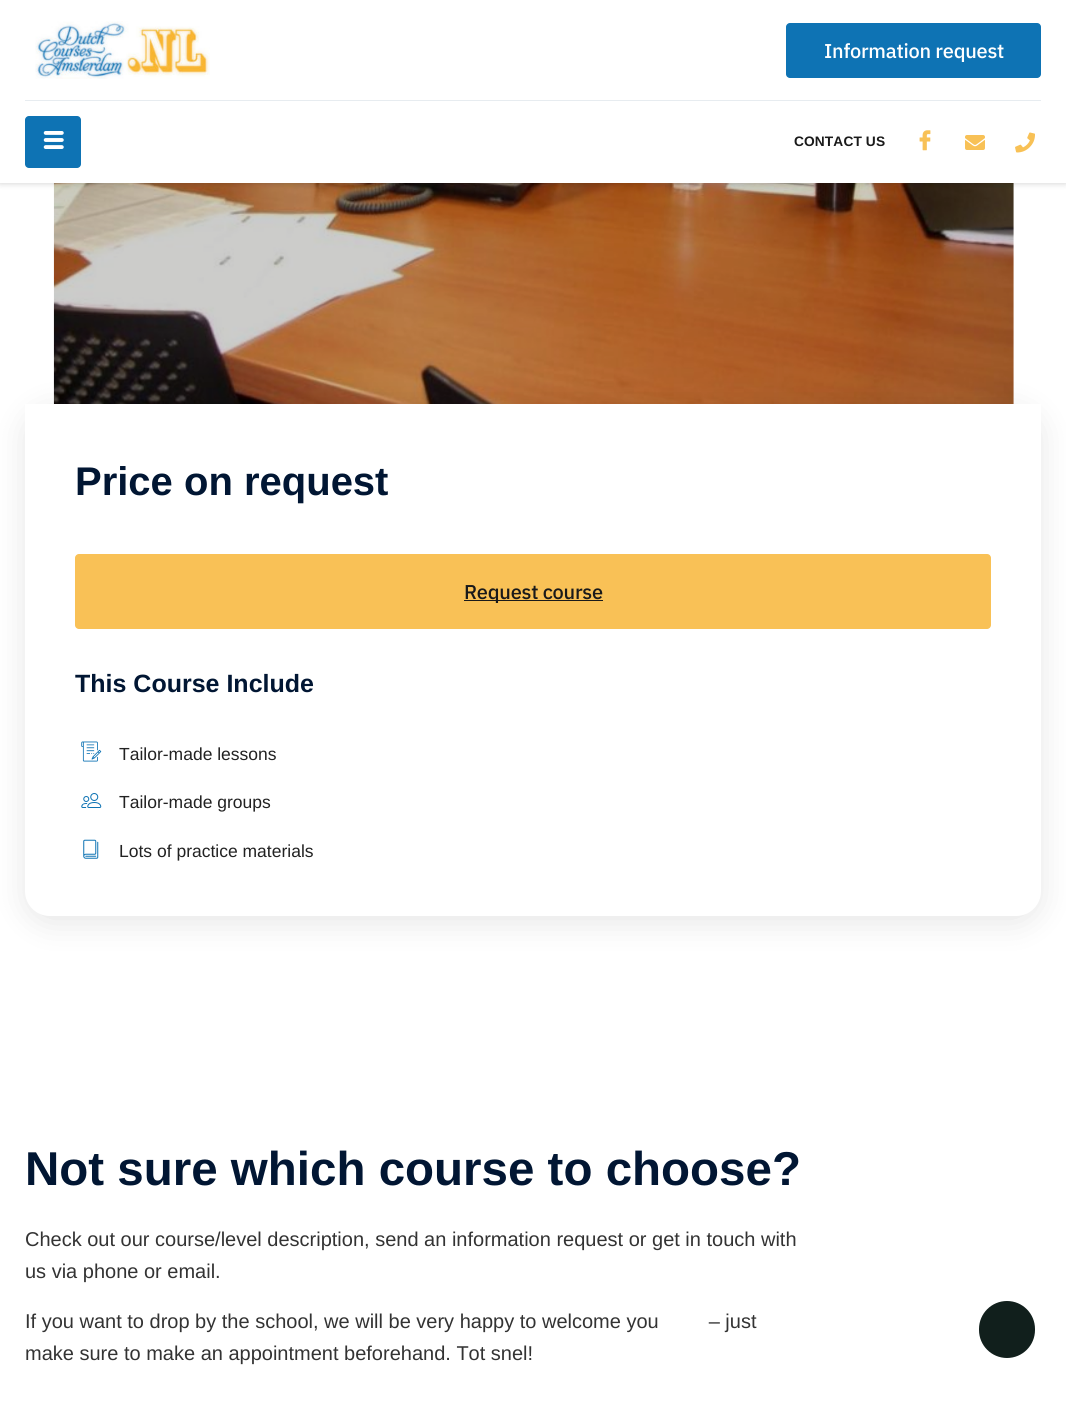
import math
import cairo


def write_spaced(ctx, x, y, s, letter, word):
	ctx.move_to(x, y)
	for ch in s:
		ctx.show_text(ch)
		ctx.rel_move_to(letter + word * (ch == ' '), 0)

def round_path(ctx, x, y, w, h, r):
	ctx.new_sub_path()
	for i, (u, v) in enumerate([(x + w - r, y + h - r), (x + r, y + h - r), (x + r, y + r), (x + w - r, y + r)]):
		ctx.arc(u, v, r, i * math.pi / 2, (i + 1) * math.pi / 2)
	ctx.close_path()

def blur_box(ctx, x, y, w, h, r, blur, alpha):
	ctx.push_group_with_content(cairo.CONTENT_ALPHA)
	ctx.set_operator(cairo.OPERATOR_SOURCE)
	for i in range(15, -16, -2):
		e = blur * i / 6
		if min(w, h) + 2 * e > 0:
			ctx.set_source_rgba(0, 0, 0, alpha * math.erfc((i - 1) / 8.5) / 2)
			round_path(ctx, x - e, y - e, w + 2 * e, h + 2 * e, max(0, min(r + e + blur * .6, min(w, h) / 2 + e)))
			ctx.fill()
	ctx.mask(ctx.pop_group())

def paste(ctx, path, x, y, w, h):
	ctx.save()
	ctx.set_source_surface(cairo.ImageSurface.create_from_png(path), x, y)
	ctx.rectangle(x, y, w, h)
	ctx.fill()
	ctx.restore()

def draw(ctx):
	ctx.set_source_rgb(1, 1, 1)
	ctx.paint()
	paste(ctx, 'media/6.png', 53, 183, 961, 221)
	ctx.set_source_rgb(0, 0, 0)
	blur_box(ctx, 0, 1, 1066, 183, 0, 3, 0.15)
	ctx.set_source_rgb(1, 1, 1)
	ctx.rectangle(0, 0, 1066, 183)
	ctx.fill()
	paste(ctx, 'media/1.png', 35, 21, 175, 58)
	ctx.set_source_rgb(0.055, 0.451, 0.706)
	round_path(ctx, 786, 23, 255, 55, 4)
	ctx.fill()
	ctx.select_font_face('IBM Plex Sans Medium')
	ctx.set_font_size(20)
	ctx.set_source_rgb(1, 1, 1)
	write_spaced(ctx, 824, 58, 'Information request', -0.25, 0)
	ctx.set_source_rgb(0.906, 0.922, 0.941)
	ctx.rectangle(25, 100, 1016, 1)
	ctx.fill()
	ctx.set_source_rgb(0.055, 0.451, 0.706)
	round_path(ctx, 25, 116, 56, 52, 4)
	ctx.fill()
	paste(ctx, 'media/2.png', 43, 131, 21, 18)
	ctx.select_font_face('Liberation Sans', cairo.FONT_SLANT_NORMAL, cairo.FONT_WEIGHT_BOLD)
	ctx.set_font_size(13.75)
	ctx.set_source_rgb(0.102, 0.102, 0.102)
	write_spaced(ctx, 794, 146, 'CONTACT US', 0.1, 0)
	paste(ctx, 'media/3.png', 919, 130, 12, 21)
	paste(ctx, 'media/4.png', 965, 135, 20, 15)
	paste(ctx, 'media/5.png', 1015, 132, 20, 21)
	ctx.set_source_rgb(0, 0, 0)
	blur_box(ctx, 25, 410, 1016, 513, 25, 15.5, 0.1)
	ctx.set_source_rgb(1, 1, 1)
	ctx.new_path()
	ctx.move_to(25, 404)
	ctx.line_to(1041, 404)
	ctx.line_to(1041, 891)
	ctx.curve_to(1041, 905, 1030, 916, 1016, 916)
	ctx.line_to(50, 916)
	ctx.curve_to(36, 916, 25, 905, 25, 891)
	ctx.close_path()
	ctx.fill()
	ctx.set_font_size(40)
	ctx.set_source_rgb(0.004, 0.086, 0.2)
	ctx.move_to(75, 495)
	ctx.show_text('Price on request')
	ctx.set_source_rgb(0.973, 0.757, 0.337)
	round_path(ctx, 75, 554, 916, 75, 4)
	ctx.fill()
	ctx.set_source_rgb(0.102, 0.102, 0.102)
	ctx.rectangle(464, 600, 139, 1)
	ctx.fill()
	ctx.select_font_face('IBM Plex Sans Medium')
	ctx.set_font_size(20)
	write_spaced(ctx, 464, 599, 'Request course', -0.25, 0)
	ctx.select_font_face('Liberation Sans', cairo.FONT_SLANT_NORMAL, cairo.FONT_WEIGHT_BOLD)
	ctx.set_font_size(25)
	ctx.set_source_rgb(0.004, 0.086, 0.2)
	ctx.move_to(75, 692)
	ctx.show_text('This Course Include')
	paste(ctx, 'media/7.png', 81, 741, 21, 21)
	ctx.select_font_face('Liberation Sans')
	ctx.set_font_size(17.5)
	ctx.set_source_rgb(0.133, 0.133, 0.133)
	ctx.move_to(119, 760)
	ctx.show_text('Tailor-made lessons')
	paste(ctx, 'media/8.png', 81, 793, 21, 15)
	ctx.move_to(119, 808)
	ctx.show_text('Tailor-made groups')
	paste(ctx, 'media/9.png', 83, 839, 16, 20)
	ctx.move_to(119, 857)
	ctx.show_text('Lots of practice materials')
	ctx.select_font_face('Liberation Sans', cairo.FONT_SLANT_NORMAL, cairo.FONT_WEIGHT_BOLD)
	ctx.set_font_size(47.5)
	ctx.set_source_rgb(0.004, 0.086, 0.2)
	ctx.move_to(25, 1185)
	ctx.show_text('Not sure which course to choose?')
	ctx.select_font_face('Liberation Sans')
	ctx.set_font_size(20)
	ctx.set_source_rgb(0.2, 0.2, 0.2)
	for x, y, s in [
		(25, 1246, 'Check out our course/level description, send an information request or get in touch with'),
		(25, 1278, 'us via phone or email.'),
		(25, 1328, 'If you want to drop by the school, we will be very happy to welcome you         – just'),
		(25, 1360, 'make sure to make an appointment beforehand. Tot snel!'),
	]:
		ctx.move_to(x, y)
		ctx.show_text(s)
	ctx.set_source_rgb(0.067, 0.122, 0.11)
	round_path(ctx, 979, 1301, 56, 57, 28)
	ctx.fill()


surface = cairo.ImageSurface(cairo.FORMAT_RGB24, 1066, 1413)
ctx = cairo.Context(surface)
options = cairo.FontOptions()
options.set_hint_metrics(cairo.HINT_METRICS_OFF)
options.set_hint_style(cairo.HINT_STYLE_NONE)
ctx.set_font_options(options)
ctx.set_miter_limit(4)
draw(ctx)
surface.write_to_png('image.png')
